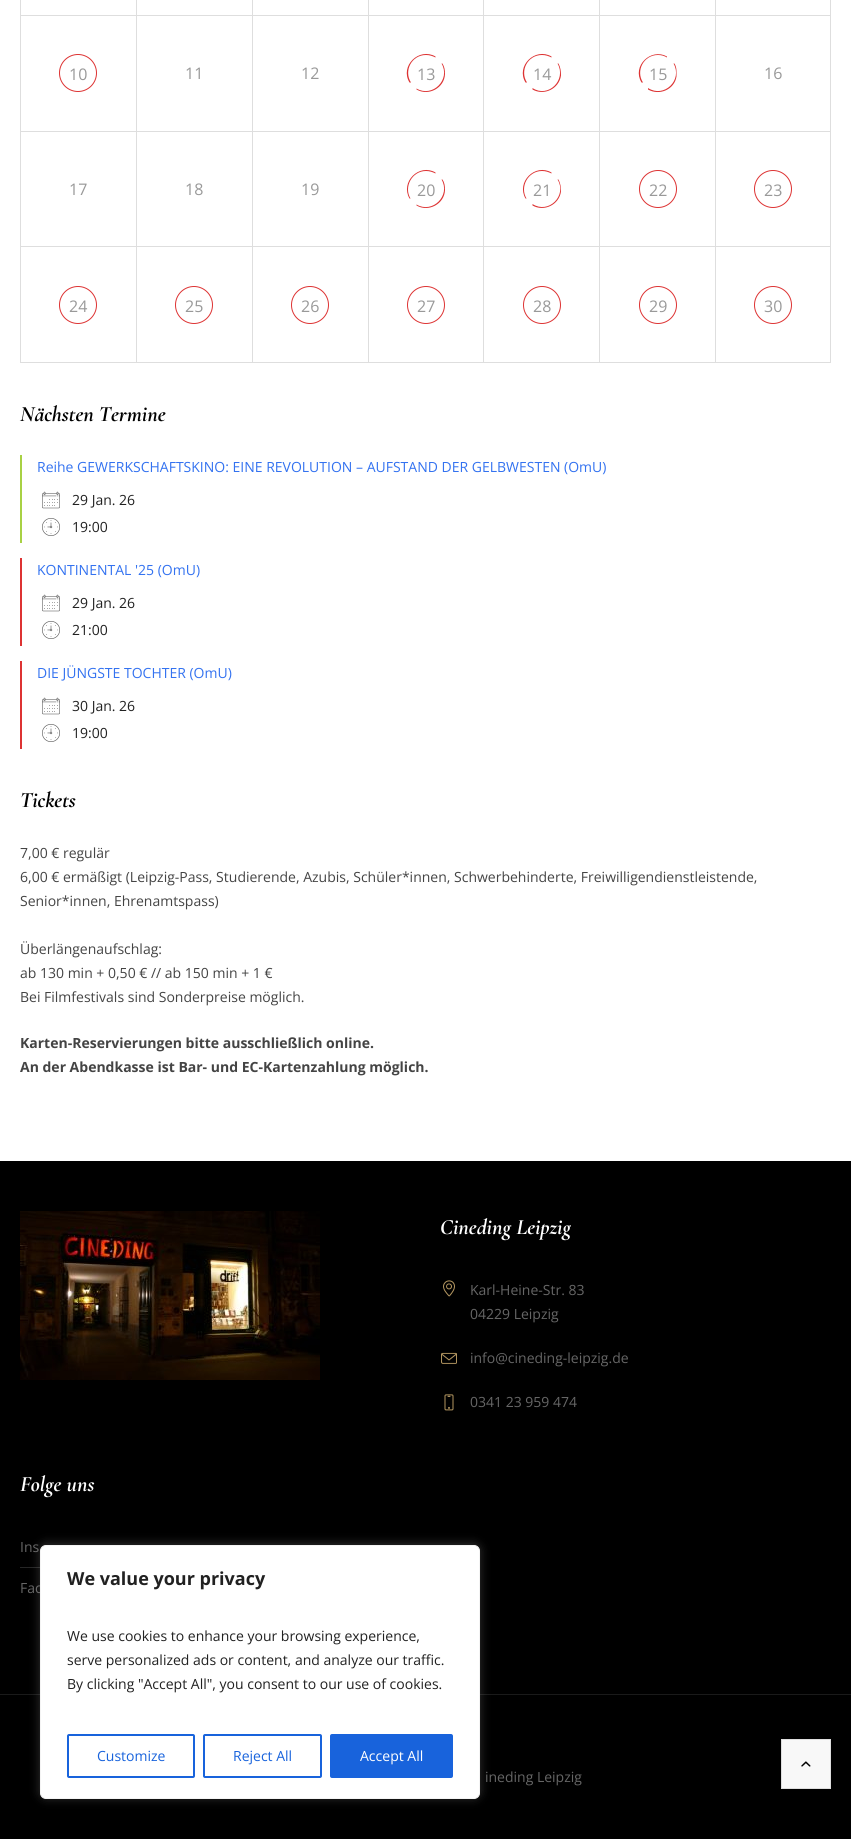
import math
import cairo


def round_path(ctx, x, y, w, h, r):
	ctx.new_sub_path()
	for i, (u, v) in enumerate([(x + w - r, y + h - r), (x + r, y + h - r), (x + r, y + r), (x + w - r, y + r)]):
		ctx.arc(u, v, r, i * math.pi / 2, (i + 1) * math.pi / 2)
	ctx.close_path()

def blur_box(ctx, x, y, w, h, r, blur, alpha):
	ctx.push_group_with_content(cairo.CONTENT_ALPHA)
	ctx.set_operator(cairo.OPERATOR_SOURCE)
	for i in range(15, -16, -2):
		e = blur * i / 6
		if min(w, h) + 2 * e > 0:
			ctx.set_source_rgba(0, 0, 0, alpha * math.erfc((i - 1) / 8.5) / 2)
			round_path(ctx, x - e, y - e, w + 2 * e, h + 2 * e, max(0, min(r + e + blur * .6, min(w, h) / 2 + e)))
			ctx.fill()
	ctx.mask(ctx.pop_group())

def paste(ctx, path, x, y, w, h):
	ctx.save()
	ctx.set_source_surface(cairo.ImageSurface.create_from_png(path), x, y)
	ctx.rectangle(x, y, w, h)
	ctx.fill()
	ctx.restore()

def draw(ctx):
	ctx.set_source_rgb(1, 1, 1)
	ctx.paint()
	ctx.set_source_rgb(0.871, 0.871, 0.871)
	ctx.rectangle(20, 362, 811, 1)
	ctx.rectangle(20, 0, 1, 15)
	ctx.rectangle(136, 0, 1, 15)
	ctx.rectangle(252, 0, 1, 15)
	ctx.rectangle(368, 0, 1, 15)
	ctx.rectangle(483, 0, 1, 15)
	ctx.rectangle(599, 0, 1, 15)
	ctx.rectangle(830, 0, 1, 15)
	ctx.rectangle(715, 0, 1, 15)
	ctx.rectangle(20, 15, 811, 1)
	ctx.rectangle(20, 15, 1, 116)
	ctx.fill()
	ctx.arc(78, 73, 18.5, 0, 2 * math.pi)
	ctx.set_source_rgb(0.867, 0.2, 0.2)
	ctx.set_line_width(1)
	ctx.stroke()
	ctx.select_font_face('Open Sans')
	ctx.set_font_size(16)
	ctx.set_source_rgb(0.6, 0.6, 0.6)
	ctx.move_to(69, 80)
	ctx.show_text('10')
	ctx.set_source_rgb(0.871, 0.871, 0.871)
	ctx.rectangle(136, 15, 1, 116)
	ctx.fill()
	ctx.set_source_rgb(0.6, 0.6, 0.6)
	ctx.move_to(185, 79)
	ctx.show_text('11')
	ctx.set_source_rgb(0.871, 0.871, 0.871)
	ctx.rectangle(252, 15, 1, 116)
	ctx.fill()
	ctx.set_source_rgb(0.6, 0.6, 0.6)
	ctx.move_to(301, 79)
	ctx.show_text('12')
	ctx.set_source_rgb(0.871, 0.871, 0.871)
	ctx.rectangle(368, 15, 1, 116)
	ctx.fill()
	ctx.set_source_rgb(0.867, 0.2, 0.2)
	ctx.set_fill_rule(cairo.FILL_RULE_EVEN_ODD)
	ctx.new_path()
	ctx.move_to(426, 55)
	ctx.curve_to(411.5, 55, 403.5, 71, 411, 82.5)
	ctx.line_to(409.5, 82.5)
	ctx.curve_to(399.5, 66, 419, 47, 435.5, 56.5)
	ctx.line_to(435.5, 57.5)
	ctx.curve_to(432.5, 56, 429.5, 55, 426, 55)
	ctx.close_path()
	ctx.move_to(445, 74)
	ctx.curve_to(444.5, 88, 428.5, 96.5, 416.5, 89.5)
	ctx.line_to(416.5, 88.5)
	ctx.curve_to(432.5, 98, 451, 79.5, 441.5, 63.5)
	ctx.line_to(442.5, 63.5)
	ctx.curve_to(444.5, 67, 445, 70, 445, 74)
	ctx.close_path()
	ctx.fill()
	ctx.set_source_rgb(0.6, 0.6, 0.6)
	ctx.move_to(417, 80)
	ctx.show_text('13')
	ctx.set_source_rgb(0.871, 0.871, 0.871)
	ctx.rectangle(483, 15, 1, 116)
	ctx.fill()
	ctx.set_source_rgb(0.867, 0.2, 0.2)
	ctx.new_path()
	ctx.move_to(542, 55)
	ctx.curve_to(527.5, 55, 519.5, 71, 527, 82.5)
	ctx.line_to(525.5, 82.5)
	ctx.curve_to(515.5, 66, 535, 47, 551.5, 56.5)
	ctx.line_to(551.5, 57.5)
	ctx.curve_to(548.5, 56, 545.5, 55, 542, 55)
	ctx.close_path()
	ctx.move_to(561, 75.5)
	ctx.curve_to(559, 89, 544, 96, 532.5, 89.5)
	ctx.line_to(532.5, 88)
	ctx.curve_to(548, 98.5, 567, 80, 557.5, 63.5)
	ctx.line_to(558.5, 63.5)
	ctx.curve_to(560.5, 67.5, 561, 71, 561, 75.5)
	ctx.close_path()
	ctx.fill()
	ctx.set_source_rgb(0.6, 0.6, 0.6)
	ctx.move_to(533, 80)
	ctx.show_text('14')
	ctx.set_source_rgb(0.871, 0.871, 0.871)
	ctx.rectangle(599, 15, 1, 116)
	ctx.fill()
	ctx.set_source_rgb(0.867, 0.2, 0.2)
	ctx.new_path()
	ctx.move_to(658, 55)
	ctx.curve_to(643.5, 55, 635.5, 71, 643, 82.5)
	ctx.line_to(641.5, 82.5)
	ctx.curve_to(631.5, 66, 651, 47.5, 667, 56.5)
	ctx.line_to(667, 57.5)
	ctx.curve_to(664.5, 56, 661.5, 55, 658, 55)
	ctx.close_path()
	ctx.move_to(676.5, 76.5)
	ctx.curve_to(674.5, 89.5, 659.5, 96, 648, 89.5)
	ctx.line_to(648, 88)
	ctx.curve_to(664, 98.5, 683, 80, 673.5, 63.5)
	ctx.line_to(674.5, 63.5)
	ctx.curve_to(677, 68, 676.5, 71.5, 676.5, 76.5)
	ctx.close_path()
	ctx.fill()
	ctx.set_source_rgb(0.6, 0.6, 0.6)
	ctx.move_to(649, 80)
	ctx.show_text('15')
	ctx.set_source_rgb(0.871, 0.871, 0.871)
	ctx.rectangle(830, 15, 1, 116)
	ctx.fill()
	ctx.rectangle(715, 15, 1, 116)
	ctx.fill()
	ctx.set_source_rgb(0.6, 0.6, 0.6)
	ctx.move_to(764, 79)
	ctx.show_text('16')
	ctx.set_source_rgb(0.871, 0.871, 0.871)
	ctx.rectangle(20, 131, 811, 1)
	ctx.fill()
	ctx.rectangle(20, 131, 1, 115)
	ctx.fill()
	ctx.set_source_rgb(0.6, 0.6, 0.6)
	ctx.move_to(69, 195)
	ctx.show_text('17')
	ctx.set_source_rgb(0.871, 0.871, 0.871)
	ctx.rectangle(136, 131, 1, 115)
	ctx.fill()
	ctx.set_source_rgb(0.6, 0.6, 0.6)
	ctx.move_to(185, 195)
	ctx.show_text('18')
	ctx.set_source_rgb(0.871, 0.871, 0.871)
	ctx.rectangle(252, 131, 1, 115)
	ctx.fill()
	ctx.set_source_rgb(0.6, 0.6, 0.6)
	ctx.move_to(301, 195)
	ctx.show_text('19')
	ctx.set_source_rgb(0.871, 0.871, 0.871)
	ctx.rectangle(368, 131, 1, 115)
	ctx.fill()
	ctx.set_source_rgb(0.867, 0.2, 0.2)
	ctx.new_path()
	ctx.move_to(426, 171)
	ctx.curve_to(412, 171, 403.5, 187, 410.5, 198.5)
	ctx.line_to(409.5, 198.5)
	ctx.curve_to(400, 182, 419, 163, 435.5, 172.5)
	ctx.line_to(435.5, 173.5)
	ctx.curve_to(432.5, 172, 429.5, 171, 426, 171)
	ctx.close_path()
	ctx.move_to(445, 190)
	ctx.curve_to(444.5, 204, 428.5, 212.5, 416.5, 205.5)
	ctx.line_to(416.5, 204.5)
	ctx.curve_to(432.5, 214, 451, 195.5, 441.5, 179.5)
	ctx.line_to(442.5, 179.5)
	ctx.curve_to(444.5, 182.5, 445, 186, 445, 190)
	ctx.close_path()
	ctx.fill()
	ctx.set_source_rgb(0.6, 0.6, 0.6)
	ctx.move_to(417, 196)
	ctx.show_text('20')
	ctx.set_source_rgb(0.871, 0.871, 0.871)
	ctx.rectangle(483, 131, 1, 115)
	ctx.fill()
	ctx.set_source_rgb(0.867, 0.2, 0.2)
	ctx.new_path()
	ctx.move_to(542, 171)
	ctx.curve_to(528, 171, 519.5, 187, 526.5, 198.5)
	ctx.line_to(525.5, 198.5)
	ctx.curve_to(516, 182, 535, 163, 551.5, 172.5)
	ctx.line_to(551.5, 173.5)
	ctx.curve_to(548.5, 172, 545.5, 171, 542, 171)
	ctx.close_path()
	ctx.move_to(561, 191.5)
	ctx.curve_to(559, 205, 544, 212, 532.5, 205.5)
	ctx.line_to(532.5, 204)
	ctx.curve_to(548.5, 214.5, 567.5, 195.5, 557.5, 179.5)
	ctx.line_to(558.5, 179.5)
	ctx.curve_to(560.5, 183.5, 561, 187, 561, 191.5)
	ctx.close_path()
	ctx.fill()
	ctx.set_source_rgb(0.6, 0.6, 0.6)
	ctx.move_to(533, 196)
	ctx.show_text('21')
	ctx.set_source_rgb(0.871, 0.871, 0.871)
	ctx.rectangle(599, 131, 1, 115)
	ctx.fill()
	ctx.arc(658, 189, 18.5, 0, 2 * math.pi)
	ctx.set_source_rgb(0.867, 0.2, 0.2)
	ctx.stroke()
	ctx.set_source_rgb(0.6, 0.6, 0.6)
	ctx.move_to(649, 196)
	ctx.show_text('22')
	ctx.set_source_rgb(0.871, 0.871, 0.871)
	ctx.rectangle(830, 131, 1, 115)
	ctx.fill()
	ctx.rectangle(715, 131, 1, 115)
	ctx.fill()
	ctx.arc(773, 189, 18.5, 0, 2 * math.pi)
	ctx.set_source_rgb(0.867, 0.2, 0.2)
	ctx.stroke()
	ctx.set_source_rgb(0.6, 0.6, 0.6)
	ctx.move_to(764, 196)
	ctx.show_text('23')
	ctx.set_source_rgb(0.871, 0.871, 0.871)
	ctx.rectangle(20, 246, 811, 1)
	ctx.fill()
	ctx.rectangle(20, 246, 1, 116)
	ctx.fill()
	ctx.arc(78, 305, 18.5, 0, 2 * math.pi)
	ctx.set_source_rgb(0.867, 0.2, 0.2)
	ctx.stroke()
	ctx.set_source_rgb(0.6, 0.6, 0.6)
	ctx.move_to(69, 312)
	ctx.show_text('24')
	ctx.set_source_rgb(0.871, 0.871, 0.871)
	ctx.rectangle(136, 246, 1, 116)
	ctx.fill()
	ctx.arc(194, 305, 18.5, 0, 2 * math.pi)
	ctx.set_source_rgb(0.867, 0.2, 0.2)
	ctx.stroke()
	ctx.set_source_rgb(0.6, 0.6, 0.6)
	ctx.move_to(185, 312)
	ctx.show_text('25')
	ctx.set_source_rgb(0.871, 0.871, 0.871)
	ctx.rectangle(252, 246, 1, 116)
	ctx.fill()
	ctx.arc(310, 305, 18.5, 0, 2 * math.pi)
	ctx.set_source_rgb(0.867, 0.2, 0.2)
	ctx.stroke()
	ctx.set_source_rgb(0.6, 0.6, 0.6)
	ctx.move_to(301, 312)
	ctx.show_text('26')
	ctx.set_source_rgb(0.871, 0.871, 0.871)
	ctx.rectangle(368, 246, 1, 116)
	ctx.fill()
	ctx.arc(426, 305, 18.5, 0, 2 * math.pi)
	ctx.set_source_rgb(0.867, 0.2, 0.2)
	ctx.stroke()
	ctx.set_source_rgb(0.6, 0.6, 0.6)
	ctx.move_to(417, 312)
	ctx.show_text('27')
	ctx.set_source_rgb(0.871, 0.871, 0.871)
	ctx.rectangle(483, 246, 1, 116)
	ctx.fill()
	ctx.arc(542, 305, 18.5, 0, 2 * math.pi)
	ctx.set_source_rgb(0.867, 0.2, 0.2)
	ctx.stroke()
	ctx.set_source_rgb(0.6, 0.6, 0.6)
	ctx.move_to(533, 312)
	ctx.show_text('28')
	ctx.set_source_rgb(0.871, 0.871, 0.871)
	ctx.rectangle(599, 246, 1, 116)
	ctx.fill()
	ctx.arc(658, 305, 18.5, 0, 2 * math.pi)
	ctx.set_source_rgb(0.867, 0.2, 0.2)
	ctx.stroke()
	ctx.set_source_rgb(0.6, 0.6, 0.6)
	ctx.move_to(649, 312)
	ctx.show_text('29')
	ctx.set_source_rgb(0.871, 0.871, 0.871)
	ctx.rectangle(830, 246, 1, 116)
	ctx.fill()
	ctx.rectangle(715, 246, 1, 116)
	ctx.fill()
	ctx.arc(773, 305, 18.5, 0, 2 * math.pi)
	ctx.set_source_rgb(0.867, 0.2, 0.2)
	ctx.stroke()
	ctx.set_source_rgb(0.6, 0.6, 0.6)
	ctx.move_to(764, 312)
	ctx.show_text('30')
	ctx.select_font_face('Cormorant Garamond Light', cairo.FONT_SLANT_ITALIC)
	ctx.set_font_size(22)
	ctx.set_source_rgb(0, 0, 0)
	ctx.move_to(20, 421)
	ctx.show_text('Nächsten Termine')
	ctx.set_source_rgb(0.659, 0.82, 0.267)
	ctx.rectangle(20, 455, 2, 88)
	ctx.fill()
	ctx.select_font_face('Open Sans')
	ctx.set_font_size(14)
	ctx.set_source_rgb(0.2, 0.447, 0.941)
	ctx.move_to(37, 472)
	ctx.show_text('Reihe GEWERKSCHAFTSKINO: EINE REVOLUTION – AUFSTAND DER GELBWESTEN (OmU)')
	paste(ctx, 'media/1.png', 42, 491, 18, 18)
	ctx.set_source_rgb(0.129, 0.129, 0.129)
	ctx.move_to(72, 505)
	ctx.show_text('29 Jan. 26')
	paste(ctx, 'media/2.png', 42, 518, 18, 18)
	ctx.move_to(72, 532)
	ctx.show_text('19:00')
	ctx.set_source_rgb(0.867, 0.2, 0.2)
	ctx.rectangle(20, 558, 2, 88)
	ctx.fill()
	ctx.set_source_rgb(0.2, 0.447, 0.941)
	ctx.move_to(37, 575)
	ctx.show_text('KONTINENTAL \'25 (OmU)')
	paste(ctx, 'media/1.png', 42, 594, 18, 18)
	ctx.set_source_rgb(0.129, 0.129, 0.129)
	ctx.move_to(72, 608)
	ctx.show_text('29 Jan. 26')
	paste(ctx, 'media/2.png', 42, 621, 18, 18)
	ctx.move_to(72, 635)
	ctx.show_text('21:00')
	ctx.set_source_rgb(0.867, 0.2, 0.2)
	ctx.rectangle(20, 661, 2, 88)
	ctx.fill()
	ctx.set_source_rgb(0.2, 0.447, 0.941)
	ctx.move_to(37, 678)
	ctx.show_text('DIE JÜNGSTE TOCHTER (OmU)')
	paste(ctx, 'media/1.png', 42, 697, 18, 18)
	ctx.set_source_rgb(0.129, 0.129, 0.129)
	ctx.move_to(72, 711)
	ctx.show_text('30 Jan. 26')
	paste(ctx, 'media/2.png', 42, 724, 18, 18)
	ctx.move_to(72, 738)
	ctx.show_text('19:00')
	ctx.select_font_face('Cormorant Garamond Light', cairo.FONT_SLANT_ITALIC)
	ctx.set_font_size(22)
	ctx.set_source_rgb(0, 0, 0)
	ctx.move_to(20, 807)
	ctx.show_text('Tickets')
	ctx.select_font_face('Open Sans')
	ctx.set_font_size(14)
	ctx.set_source_rgb(0.267, 0.267, 0.267)
	for x, y, s in [
		(20, 858, '7,00 € regulär'),
		(20, 882, '6,00 € ermäßigt (Leipzig-Pass, Studierende, Azubis, Schüler*innen, Schwerbehinderte, Freiwilligendienstleistende,'),
		(20, 906, 'Senior*innen, Ehrenamtspass)'),
		(20, 954, 'Überlängenaufschlag:'),
		(20, 978, 'ab 130 min + 0,50 € // ab 150 min + 1 €'),
		(20, 1002, 'Bei Filmfestivals sind Sonderpreise möglich.'),
	]:
		ctx.move_to(x, y)
		ctx.show_text(s)
	ctx.select_font_face('Open Sans', cairo.FONT_SLANT_NORMAL, cairo.FONT_WEIGHT_BOLD)
	ctx.move_to(20, 1048)
	ctx.show_text('Karten-Reservierungen bitte ausschließlich online.')
	ctx.move_to(20, 1072)
	ctx.show_text('An der Abendkasse ist Bar- und EC-Kartenzahlung möglich.')
	ctx.set_source_rgb(0, 0, 0)
	ctx.rectangle(0, 1161, 851, 533)
	ctx.fill()
	paste(ctx, 'media/3.png', 20, 1211, 300, 169)
	ctx.select_font_face('Cormorant Garamond Light', cairo.FONT_SLANT_ITALIC)
	ctx.set_font_size(22)
	ctx.set_source_rgb(1, 1, 1)
	ctx.move_to(440, 1234)
	ctx.show_text('Cineding Leipzig')
	paste(ctx, 'media/4.png', 443, 1280, 12, 17)
	ctx.select_font_face('Open Sans')
	ctx.set_font_size(14)
	ctx.set_source_rgb(0.4, 0.4, 0.4)
	ctx.move_to(470, 1295)
	ctx.show_text('Karl-Heine-Str. 83')
	ctx.move_to(470, 1319)
	ctx.show_text('04229 Leipzig')
	paste(ctx, 'media/5.png', 441, 1352, 16, 12)
	ctx.move_to(470, 1363)
	ctx.show_text('info@cineding-leipzig.de')
	paste(ctx, 'media/6.png', 444, 1394, 10, 17)
	ctx.move_to(470, 1407)
	ctx.show_text('0341 23 959 474')
	ctx.select_font_face('Cormorant Garamond Light', cairo.FONT_SLANT_ITALIC)
	ctx.set_font_size(22)
	ctx.set_source_rgb(1, 1, 1)
	ctx.move_to(20, 1491)
	ctx.show_text('Folge uns')
	ctx.set_source_rgb(0.149, 0.149, 0.149)
	ctx.rectangle(20, 1567, 20, 1)
	ctx.fill()
	ctx.select_font_face('Open Sans')
	ctx.set_font_size(14)
	ctx.set_source_rgb(0.4, 0.4, 0.4)
	ctx.move_to(20, 1552)
	ctx.show_text('Ins')
	ctx.move_to(20, 1593)
	ctx.show_text('Fac')
	ctx.set_source_rgb(0, 0, 0)
	ctx.rectangle(0, 1695, 851, 144)
	ctx.fill()
	ctx.set_source_rgb(0.969, 0.969, 0.969)
	ctx.rectangle(781.5, 1739.5, 49, 49)
	ctx.fill_preserve()
	ctx.set_source_rgb(0.871, 0.871, 0.871)
	ctx.stroke()
	paste(ctx, 'media/7.png', 801, 1761, 10, 6)
	ctx.set_source_rgb(0.102, 0.102, 0.102)
	ctx.rectangle(0, 1694, 851, 1)
	ctx.fill()
	ctx.set_source_rgb(0.4, 0.4, 0.4)
	ctx.move_to(485, 1782)
	ctx.show_text('ineding Leipzig')
	ctx.set_source_rgb(0.675, 0.671, 0.671)
	blur_box(ctx, 40, 1544, 440, 254, 6, 5, 0.3)
	ctx.set_source_rgb(1, 1, 1)
	round_path(ctx, 40.5, 1545.5, 439, 253, 5.5)
	ctx.fill_preserve()
	ctx.set_source_rgb(0.957, 0.957, 0.957)
	ctx.stroke()
	ctx.select_font_face('Open Sans', cairo.FONT_SLANT_NORMAL, cairo.FONT_WEIGHT_BOLD)
	ctx.set_font_size(18)
	ctx.set_source_rgb(0.129, 0.129, 0.129)
	ctx.move_to(67, 1585)
	ctx.show_text('We value your privacy')
	ctx.select_font_face('Open Sans')
	ctx.set_font_size(14)
	for x, y, s in [
		(67, 1641, 'We use cookies to enhance your browsing experience,'),
		(67, 1665, 'serve personalized ads or content, and analyze our traffic.'),
		(67, 1689, 'By clicking "Accept All", you consent to our use of cookies.'),
	]:
		ctx.move_to(x, y)
		ctx.show_text(s)
	round_path(ctx, 68, 1735, 126, 42, 1)
	ctx.set_source_rgb(0.094, 0.388, 0.863)
	ctx.set_line_width(2)
	ctx.stroke()
	ctx.move_to(97, 1761)
	ctx.show_text('Customize')
	round_path(ctx, 204, 1735, 117, 42, 1)
	ctx.stroke()
	ctx.move_to(233, 1761)
	ctx.show_text('Reject All')
	round_path(ctx, 331, 1735, 121, 42, 1)
	ctx.fill_preserve()
	ctx.stroke()
	ctx.set_source_rgb(1, 1, 1)
	ctx.move_to(360, 1761)
	ctx.show_text('Accept All')


surface = cairo.ImageSurface(cairo.FORMAT_RGB24, 851, 1839)
ctx = cairo.Context(surface)
options = cairo.FontOptions()
options.set_hint_metrics(cairo.HINT_METRICS_OFF)
options.set_hint_style(cairo.HINT_STYLE_NONE)
ctx.set_font_options(options)
ctx.set_miter_limit(4)
draw(ctx)
surface.write_to_png('image.png')
